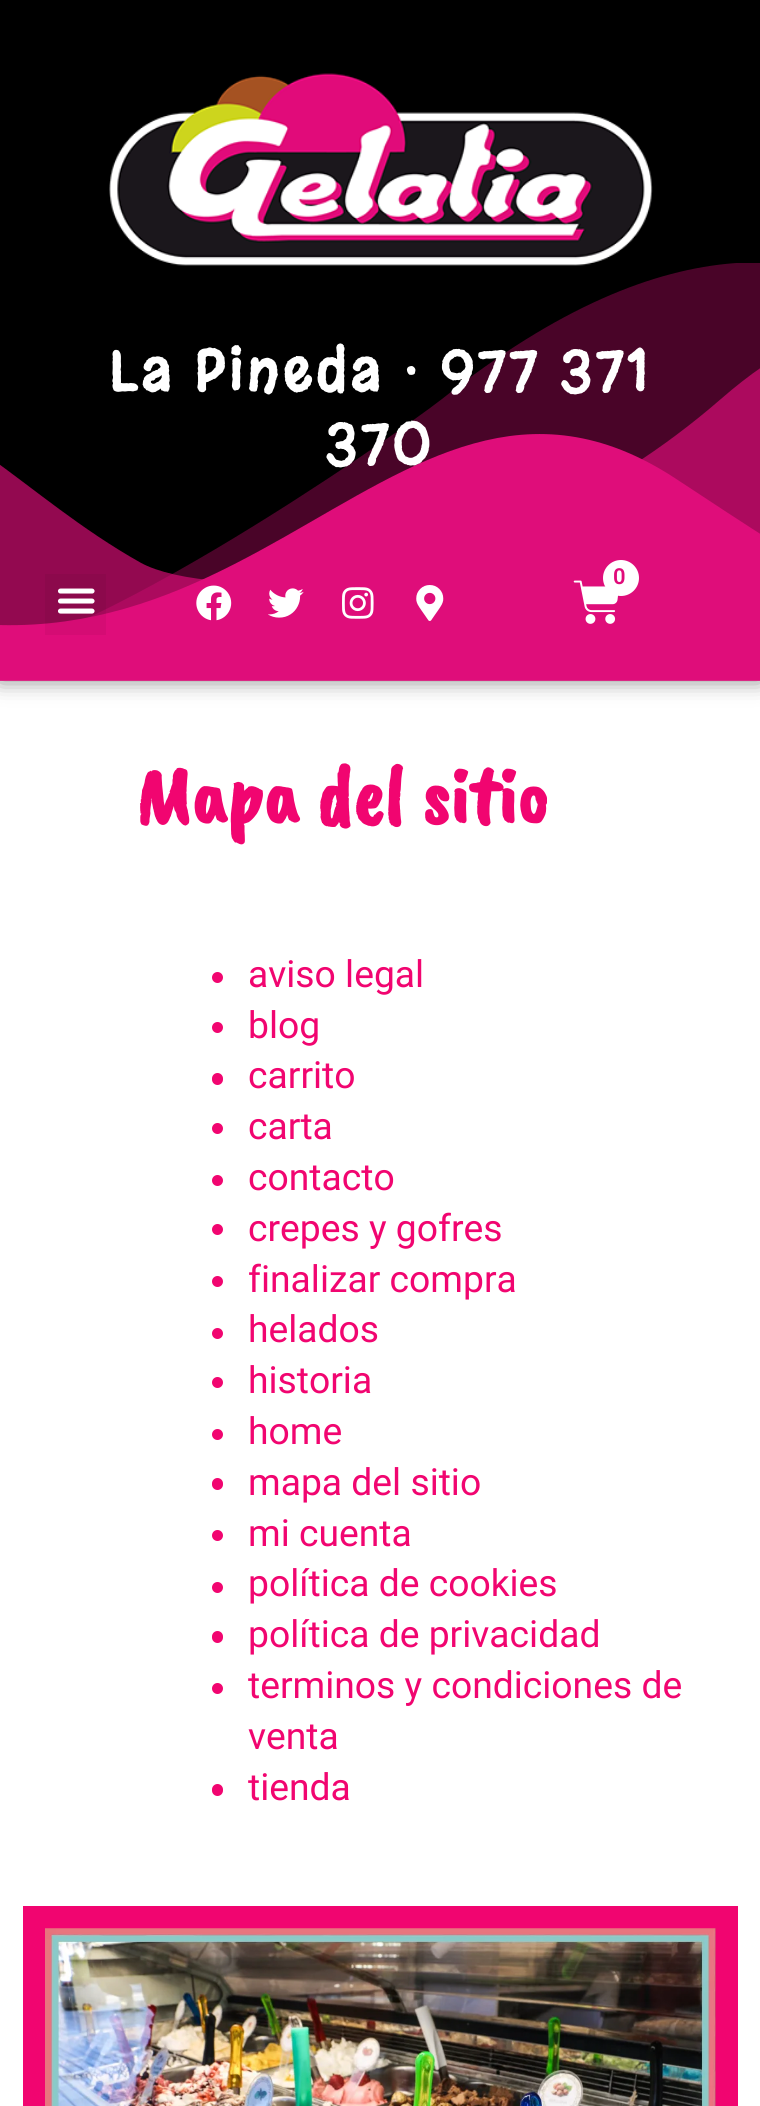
import math
import cairo


def write_spaced(ctx, x, y, s, letter, word):
	ctx.move_to(x, y)
	for ch in s:
		ctx.show_text(ch)
		ctx.rel_move_to(letter + word * (ch == ' '), 0)

def round_path(ctx, x, y, w, h, r):
	ctx.new_sub_path()
	for i, (u, v) in enumerate([(x + w - r, y + h - r), (x + r, y + h - r), (x + r, y + r), (x + w - r, y + r)]):
		ctx.arc(u, v, r, i * math.pi / 2, (i + 1) * math.pi / 2)
	ctx.close_path()

def blur_box(ctx, x, y, w, h, r, blur, alpha):
	ctx.push_group_with_content(cairo.CONTENT_ALPHA)
	ctx.set_operator(cairo.OPERATOR_SOURCE)
	for i in range(15, -16, -2):
		e = blur * i / 6
		if min(w, h) + 2 * e > 0:
			ctx.set_source_rgba(0, 0, 0, alpha * math.erfc((i - 1) / 8.5) / 2)
			round_path(ctx, x - e, y - e, w + 2 * e, h + 2 * e, max(0, min(r + e + blur * .6, min(w, h) / 2 + e)))
			ctx.fill()
	ctx.mask(ctx.pop_group())

def paste(ctx, path, x, y, w, h):
	ctx.save()
	ctx.set_source_surface(cairo.ImageSurface.create_from_png(path), x, y)
	ctx.rectangle(x, y, w, h)
	ctx.fill()
	ctx.restore()

def draw(ctx):
	ctx.set_source_rgb(1, 1, 1)
	ctx.paint()
	ctx.set_source_rgb(0, 0, 0)
	blur_box(ctx, 0, 0, 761, 680, 0, 11, 0.5)
	ctx.set_source_rgb(0, 0, 0)
	ctx.rectangle(0, 0, 760, 626)
	ctx.fill()
	paste(ctx, 'media/1.png', 0, 263, 760, 418)
	paste(ctx, 'media/2.png', 109, 73, 544, 193)
	ctx.select_font_face('Margarine', cairo.FONT_SLANT_NORMAL, cairo.FONT_WEIGHT_BOLD)
	ctx.set_font_size(56.25)
	ctx.set_source_rgb(1, 1, 1)
	write_spaced(ctx, 109, 391, 'La Pineda · 977 371', 4.5, 0)
	write_spaced(ctx, 325, 464, '370', 4.5, 0)
	ctx.set_source_rgba(0, 0, 0, 0.05)
	ctx.rectangle(45, 574, 61, 61)
	ctx.fill()
	paste(ctx, 'media/3.png', 58, 588, 37, 26)
	paste(ctx, 'media/4.png', 196, 585, 36, 36)
	paste(ctx, 'media/5.png', 268, 588, 36, 30)
	paste(ctx, 'media/6.png', 342, 587, 32, 32)
	paste(ctx, 'media/7.png', 416, 585, 28, 36)
	paste(ctx, 'media/8.png', 573, 580, 46, 44)
	ctx.set_source_rgb(1, 1, 1)
	ctx.arc(621, 578, 18, 0, 2 * math.pi)
	ctx.fill()
	ctx.select_font_face('Roboto SemiBold')
	ctx.set_font_size(22)
	ctx.set_source_rgb(0.882, 0.043, 0.478)
	ctx.move_to(613, 584)
	ctx.show_text('0')
	ctx.select_font_face('Caveat Brush', cairo.FONT_SLANT_NORMAL, cairo.FONT_WEIGHT_BOLD)
	ctx.set_font_size(83)
	ctx.set_source_rgb(0.945, 0.02, 0.439)
	ctx.move_to(135, 823)
	ctx.show_text('Mapa del sitio')
	ctx.new_path()
	ctx.arc(217.5, 977.5, 5.5, 0, 2 * math.pi)
	ctx.fill()
	ctx.select_font_face('Roboto')
	ctx.set_font_size(37.25)
	ctx.move_to(248, 987)
	ctx.show_text('aviso legal')
	ctx.new_path()
	ctx.arc(217.5, 1027.5, 5.5, 0, 2 * math.pi)
	ctx.fill()
	ctx.move_to(248, 1038)
	ctx.show_text('blog')
	round_path(ctx, 212, 1073, 11, 12, 5.5)
	ctx.fill()
	ctx.move_to(248, 1088)
	ctx.show_text('carrito')
	ctx.new_path()
	ctx.arc(217.5, 1128.5, 5.5, 0, 2 * math.pi)
	ctx.fill()
	ctx.move_to(248, 1139)
	ctx.show_text('carta')
	ctx.new_path()
	ctx.arc(217.5, 1180.5, 5.5, 0, 2 * math.pi)
	ctx.fill()
	ctx.move_to(248, 1190)
	ctx.show_text('contacto')
	ctx.new_path()
	ctx.arc(217.5, 1229.5, 5.5, 0, 2 * math.pi)
	ctx.fill()
	ctx.move_to(248, 1241)
	ctx.show_text('crepes y gofres')
	ctx.new_path()
	ctx.arc(217.5, 1281.5, 5.5, 0, 2 * math.pi)
	ctx.fill()
	ctx.move_to(248, 1292)
	ctx.show_text('finalizar compra')
	ctx.new_path()
	ctx.arc(217.5, 1333.5, 5.5, 0, 2 * math.pi)
	ctx.fill()
	ctx.move_to(248, 1342)
	ctx.show_text('helados')
	ctx.new_path()
	ctx.arc(217.5, 1382.5, 5.5, 0, 2 * math.pi)
	ctx.fill()
	ctx.move_to(248, 1393)
	ctx.show_text('historia')
	ctx.new_path()
	ctx.arc(217.5, 1434.5, 5.5, 0, 2 * math.pi)
	ctx.fill()
	ctx.move_to(248, 1444)
	ctx.show_text('home')
	round_path(ctx, 212, 1478, 11, 12, 5.5)
	ctx.fill()
	ctx.move_to(248, 1495)
	ctx.show_text('mapa del sitio')
	ctx.new_path()
	ctx.arc(217.5, 1535.5, 5.5, 0, 2 * math.pi)
	ctx.fill()
	ctx.move_to(248, 1546)
	ctx.show_text('mi cuenta')
	ctx.new_path()
	ctx.arc(217.5, 1587.5, 5.5, 0, 2 * math.pi)
	ctx.fill()
	ctx.move_to(248, 1596)
	ctx.show_text('política de cookies')
	round_path(ctx, 212, 1631, 11, 12, 5.5)
	ctx.fill()
	ctx.move_to(248, 1647)
	ctx.show_text('política de privacidad')
	ctx.new_path()
	ctx.arc(217.5, 1688.5, 5.5, 0, 2 * math.pi)
	ctx.fill()
	ctx.move_to(248, 1698)
	ctx.show_text('terminos y condiciones de')
	ctx.move_to(248, 1749)
	ctx.show_text('venta')
	round_path(ctx, 212, 1784, 11, 12, 5.5)
	ctx.fill()
	ctx.move_to(248, 1800)
	ctx.show_text('tienda')
	ctx.rectangle(34.5, 1917.5, 692, 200)
	ctx.set_line_width(23)
	ctx.stroke()
	paste(ctx, 'media/9.png', 45, 1928, 671, 178)


surface = cairo.ImageSurface(cairo.FORMAT_RGB24, 760, 2106)
ctx = cairo.Context(surface)
options = cairo.FontOptions()
options.set_hint_metrics(cairo.HINT_METRICS_OFF)
options.set_hint_style(cairo.HINT_STYLE_NONE)
ctx.set_font_options(options)
ctx.set_miter_limit(4)
draw(ctx)
surface.write_to_png('image.png')
